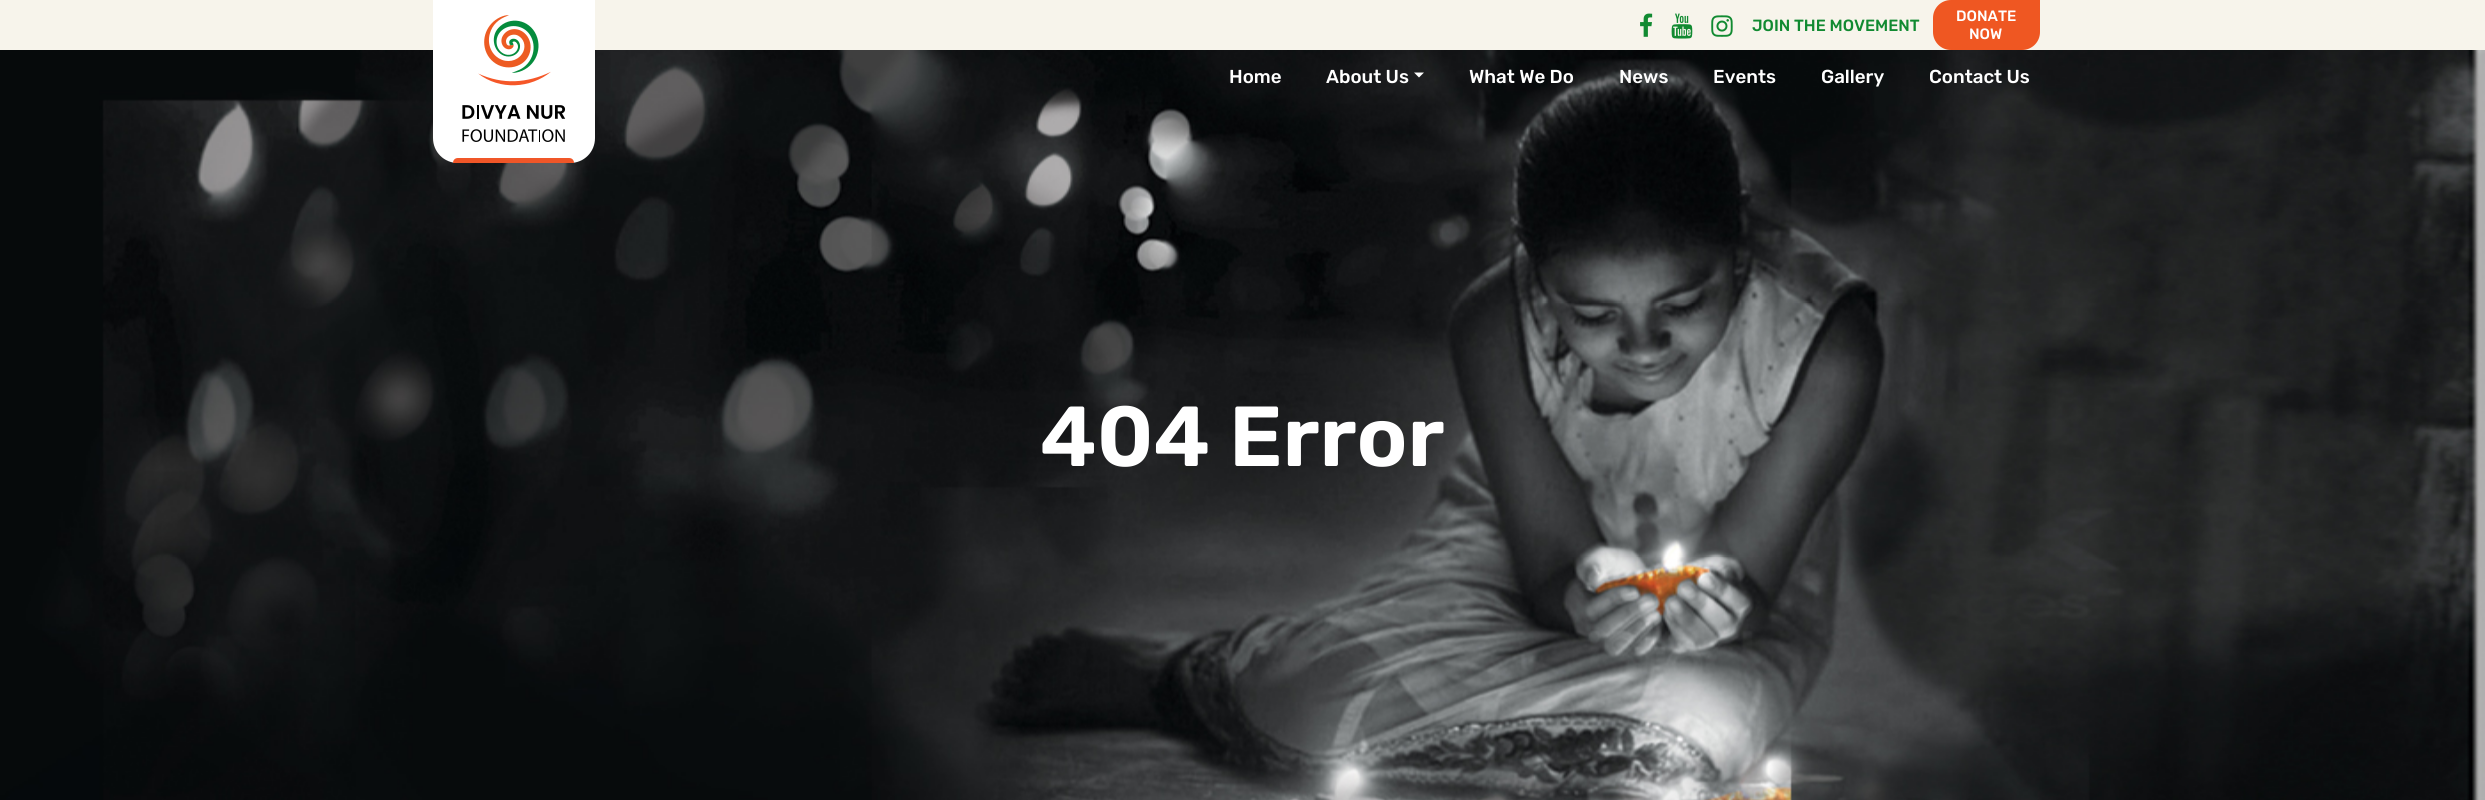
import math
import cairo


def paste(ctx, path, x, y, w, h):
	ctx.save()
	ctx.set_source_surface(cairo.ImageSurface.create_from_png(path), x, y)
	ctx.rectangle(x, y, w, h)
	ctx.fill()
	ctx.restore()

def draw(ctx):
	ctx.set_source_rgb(1, 1, 1)
	ctx.paint()
	ctx.set_source_rgb(0.965, 0.957, 0.918)
	ctx.rectangle(0, 0, 2485, 50)
	ctx.fill()
	paste(ctx, 'media/1.png', 1640, 13, 13, 24)
	paste(ctx, 'media/2.png', 1671, 13, 22, 26)
	paste(ctx, 'media/3.png', 1711, 15, 22, 22)
	ctx.select_font_face('Rubik Medium')
	ctx.set_font_size(16.25)
	ctx.set_source_rgb(0.067, 0.541, 0.192)
	ctx.move_to(1752, 31)
	ctx.show_text('JOIN THE MOVEMENT')
	ctx.set_source_rgb(0.937, 0.341, 0.133)
	ctx.new_path()
	ctx.move_to(1951, 0)
	ctx.line_to(2040, 0)
	ctx.line_to(2040, 32)
	ctx.curve_to(2040, 42, 2032, 50, 2022, 50)
	ctx.line_to(1951, 50)
	ctx.curve_to(1941, 50, 1933, 42, 1933, 32)
	ctx.line_to(1933, 18)
	ctx.curve_to(1933, 8, 1941, 0, 1951, 0)
	ctx.close_path()
	ctx.fill()
	ctx.set_font_size(15)
	ctx.set_source_rgb(1, 1, 1)
	ctx.move_to(1956, 21)
	ctx.show_text('DONATE')
	ctx.move_to(1969, 39)
	ctx.show_text('NOW')
	paste(ctx, 'media/5.png', 0, 50, 2485, 750)
	ctx.new_path()
	ctx.move_to(433, -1)
	ctx.line_to(595, -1)
	ctx.line_to(595, 138)
	ctx.curve_to(595, 152, 584, 163, 570, 163)
	ctx.line_to(458, 163)
	ctx.curve_to(444, 163, 433, 152, 433, 138)
	ctx.close_path()
	ctx.fill()
	paste(ctx, 'media/4.png', 462, 15, 104, 127)
	ctx.set_source_rgb(0.941, 0.337, 0.157)
	ctx.new_path()
	ctx.move_to(458, 158)
	ctx.line_to(569, 158)
	ctx.curve_to(572, 158, 574, 160, 574, 163)
	ctx.line_to(453, 163)
	ctx.curve_to(453, 160, 455, 158, 458, 158)
	ctx.close_path()
	ctx.fill()
	ctx.set_font_size(18.75)
	ctx.set_source_rgb(1, 1, 1)
	ctx.move_to(1229, 83)
	ctx.show_text('Home')
	ctx.move_to(1326, 83)
	ctx.show_text('About Us')
	ctx.new_path()
	ctx.move_to(1414, 72.5)
	ctx.line_to(1424, 72.5)
	ctx.line_to(1419, 77.5)
	ctx.close_path()
	ctx.fill()
	for x, y, s in [
		(1469, 83, 'What We Do'),
		(1619, 83, 'News'),
		(1713, 83, 'Events'),
		(1821, 83, 'Gallery'),
		(1929, 83, 'Contact Us'),
	]:
		ctx.move_to(x, y)
		ctx.show_text(s)
	ctx.select_font_face('Rubik SemiBold')
	ctx.set_font_size(85)
	ctx.move_to(1040, 466)
	ctx.show_text('404 Error')


surface = cairo.ImageSurface(cairo.FORMAT_RGB24, 2485, 800)
ctx = cairo.Context(surface)
options = cairo.FontOptions()
options.set_hint_metrics(cairo.HINT_METRICS_OFF)
options.set_hint_style(cairo.HINT_STYLE_NONE)
ctx.set_font_options(options)
ctx.set_miter_limit(4)
draw(ctx)
surface.write_to_png('image.png')
